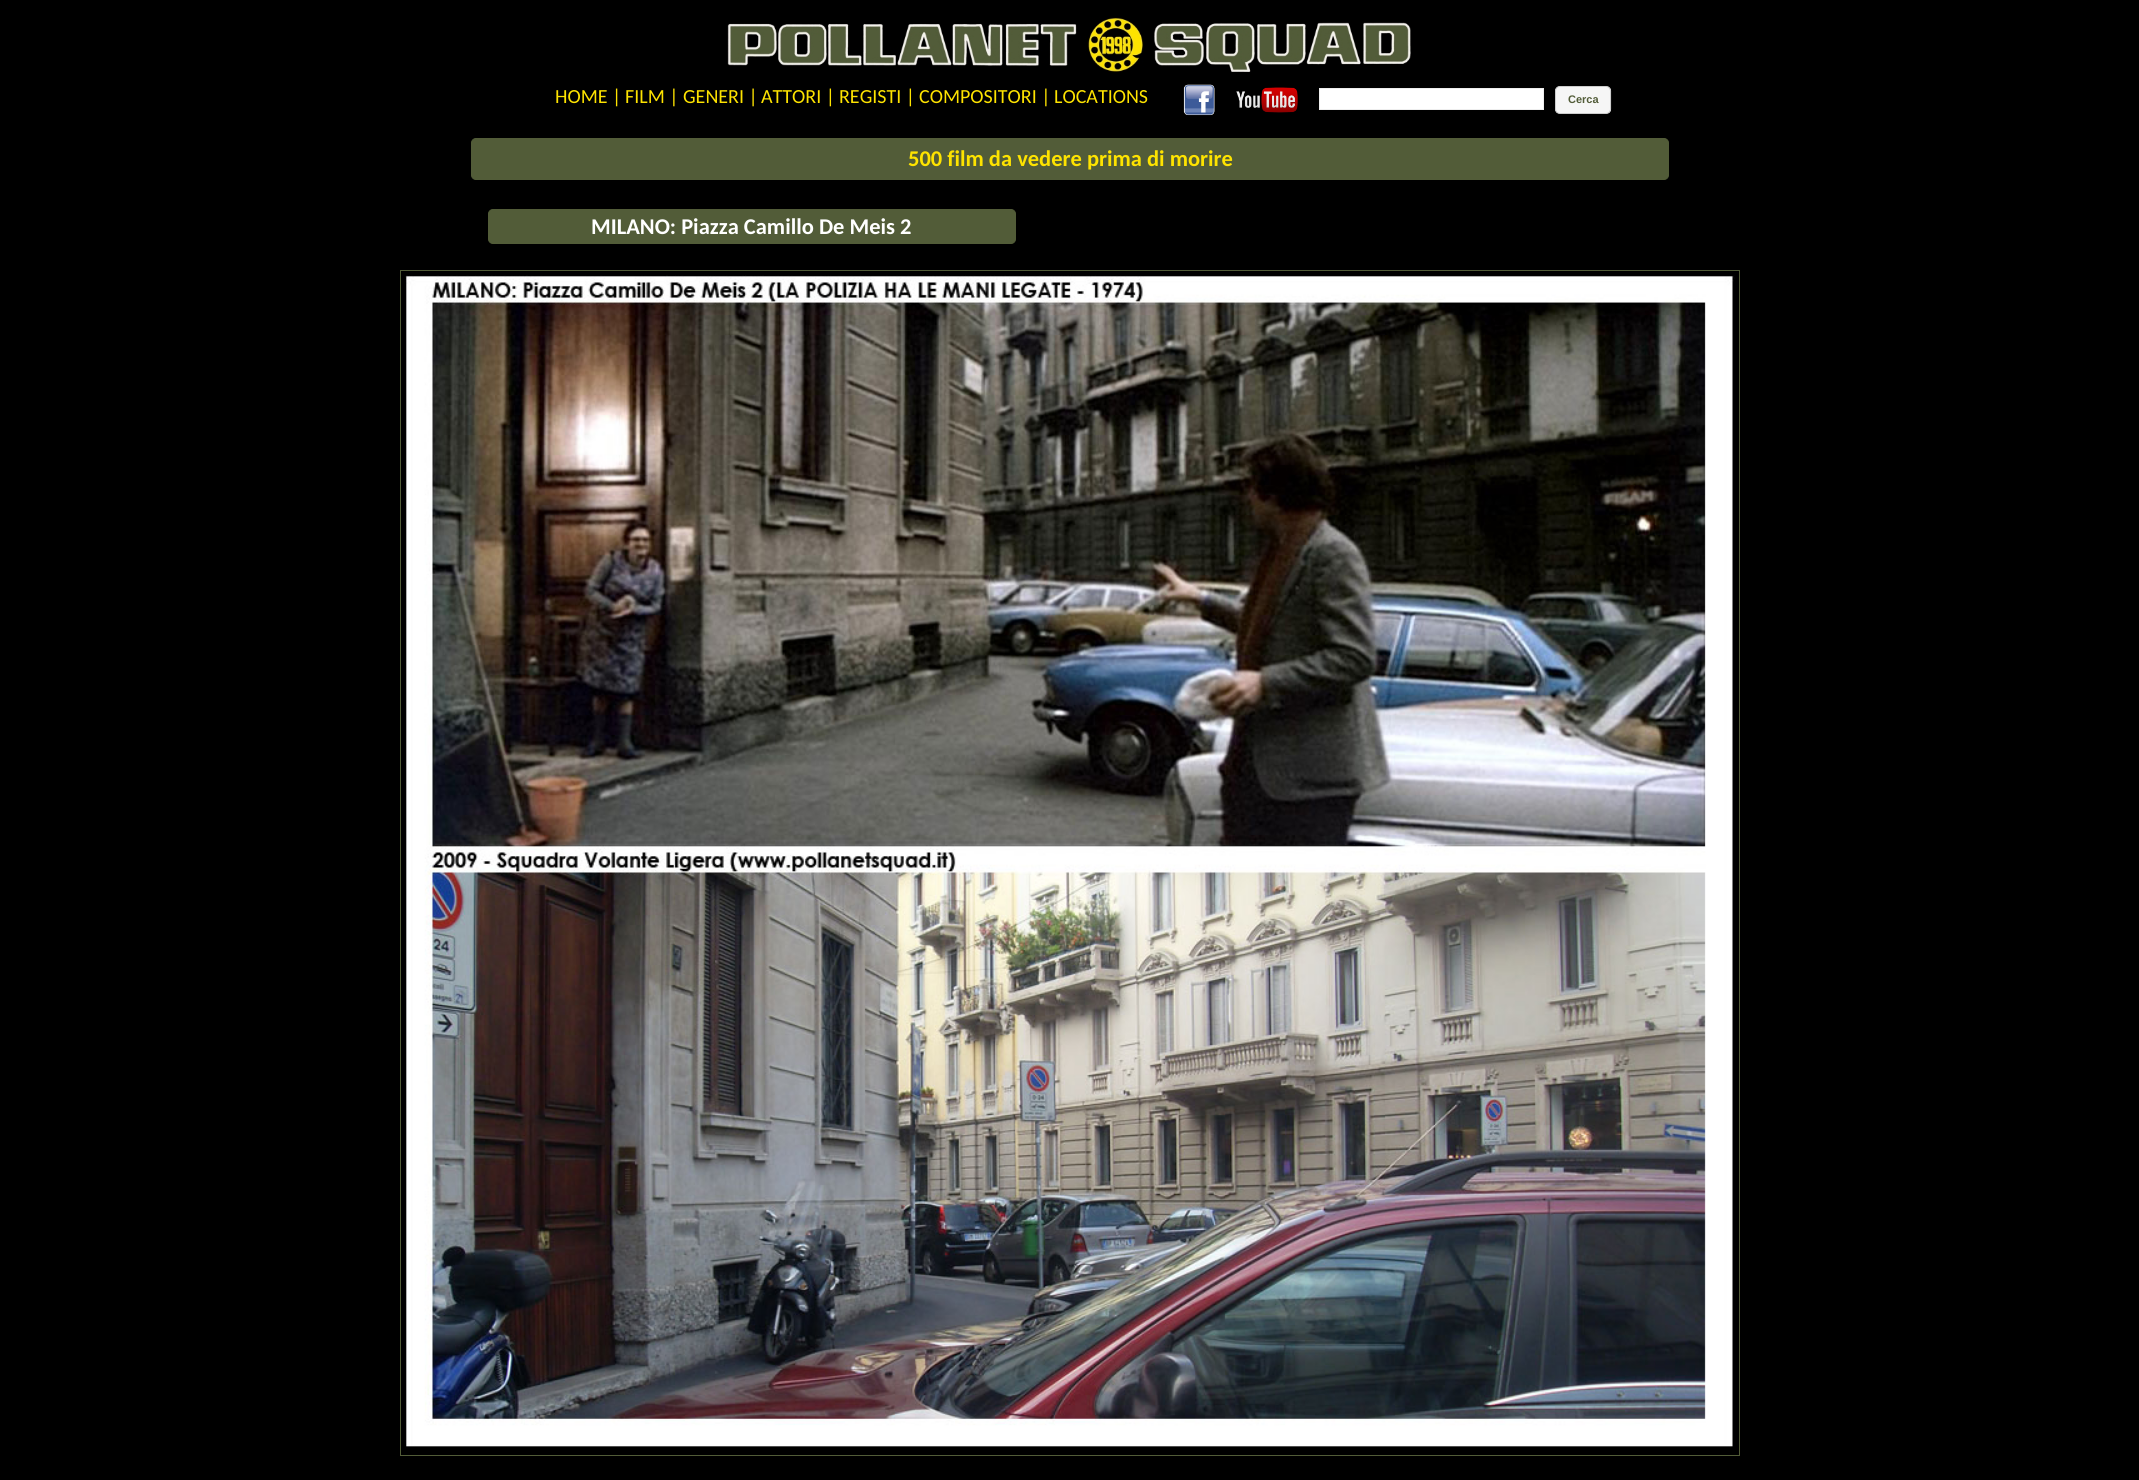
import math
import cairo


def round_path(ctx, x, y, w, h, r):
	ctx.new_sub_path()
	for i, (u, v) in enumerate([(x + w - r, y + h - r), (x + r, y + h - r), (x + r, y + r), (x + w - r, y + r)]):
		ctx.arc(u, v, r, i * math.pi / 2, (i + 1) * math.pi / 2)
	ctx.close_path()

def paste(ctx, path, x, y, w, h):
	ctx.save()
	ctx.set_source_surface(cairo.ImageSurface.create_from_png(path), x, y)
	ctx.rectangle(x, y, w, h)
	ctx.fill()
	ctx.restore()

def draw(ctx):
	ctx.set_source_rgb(0, 0, 0)
	ctx.paint()
	paste(ctx, 'media/1.png', 727, 17, 684, 55)
	ctx.select_font_face('Carlito')
	ctx.set_font_size(20)
	ctx.set_source_rgb(0.996, 0.89, 0)
	for x, y, s in [
		(555, 103, 'HOME |'),
		(625, 103, 'FILM |'),
		(683, 103, 'GENERI |'),
		(761, 103, 'ATTORI |'),
		(839, 103, 'REGISTI |'),
		(919, 103, 'COMPOSITORI |'),
		(1054, 103, 'LOCATIONS'),
	]:
		ctx.move_to(x, y)
		ctx.show_text(s)
	paste(ctx, 'media/2.png', 1183, 84, 115, 32)
	ctx.set_source_rgb(1, 1, 1)
	ctx.rectangle(1319.5, 88.5, 224, 21)
	ctx.fill_preserve()
	ctx.set_source_rgb(0.933, 0.933, 0.933)
	ctx.set_line_width(1)
	ctx.stroke()
	paste(ctx, 'media/3.png', 1555, 86, 57, 28)
	round_path(ctx, 1555.5, 86.5, 55, 27, 4.5)
	ctx.set_source_rgb(0.8, 0.8, 0.8)
	ctx.stroke()
	ctx.select_font_face('Liberation Sans', cairo.FONT_SLANT_NORMAL, cairo.FONT_WEIGHT_BOLD)
	ctx.set_font_size(11)
	ctx.set_source_rgb(0.322, 0.361, 0.22)
	ctx.move_to(1568, 103)
	ctx.show_text('Cerca')
	round_path(ctx, 471.5, 138.5, 1197, 41, 4.5)
	ctx.fill_preserve()
	ctx.stroke()
	ctx.select_font_face('Carlito', cairo.FONT_SLANT_NORMAL, cairo.FONT_WEIGHT_BOLD)
	ctx.set_font_size(22.5)
	ctx.set_source_rgb(0.996, 0.89, 0)
	ctx.move_to(908, 166)
	ctx.show_text('500 film da vedere prima di morire')
	ctx.set_source_rgb(0.322, 0.361, 0.22)
	round_path(ctx, 488.5, 209.5, 527, 34, 4.5)
	ctx.fill_preserve()
	ctx.stroke()
	ctx.set_source_rgb(1, 1, 1)
	ctx.move_to(591, 234)
	ctx.show_text('MILANO: Piazza Camillo De Meis 2')
	ctx.rectangle(400.5, 270.5, 1339, 1185)
	ctx.set_source_rgb(0.322, 0.361, 0.22)
	ctx.stroke()
	paste(ctx, 'media/4.png', 405, 275, 1330, 1172)


surface = cairo.ImageSurface(cairo.FORMAT_RGB24, 2139, 1480)
ctx = cairo.Context(surface)
options = cairo.FontOptions()
options.set_hint_metrics(cairo.HINT_METRICS_OFF)
options.set_hint_style(cairo.HINT_STYLE_NONE)
ctx.set_font_options(options)
ctx.set_miter_limit(4)
draw(ctx)
surface.write_to_png('image.png')
